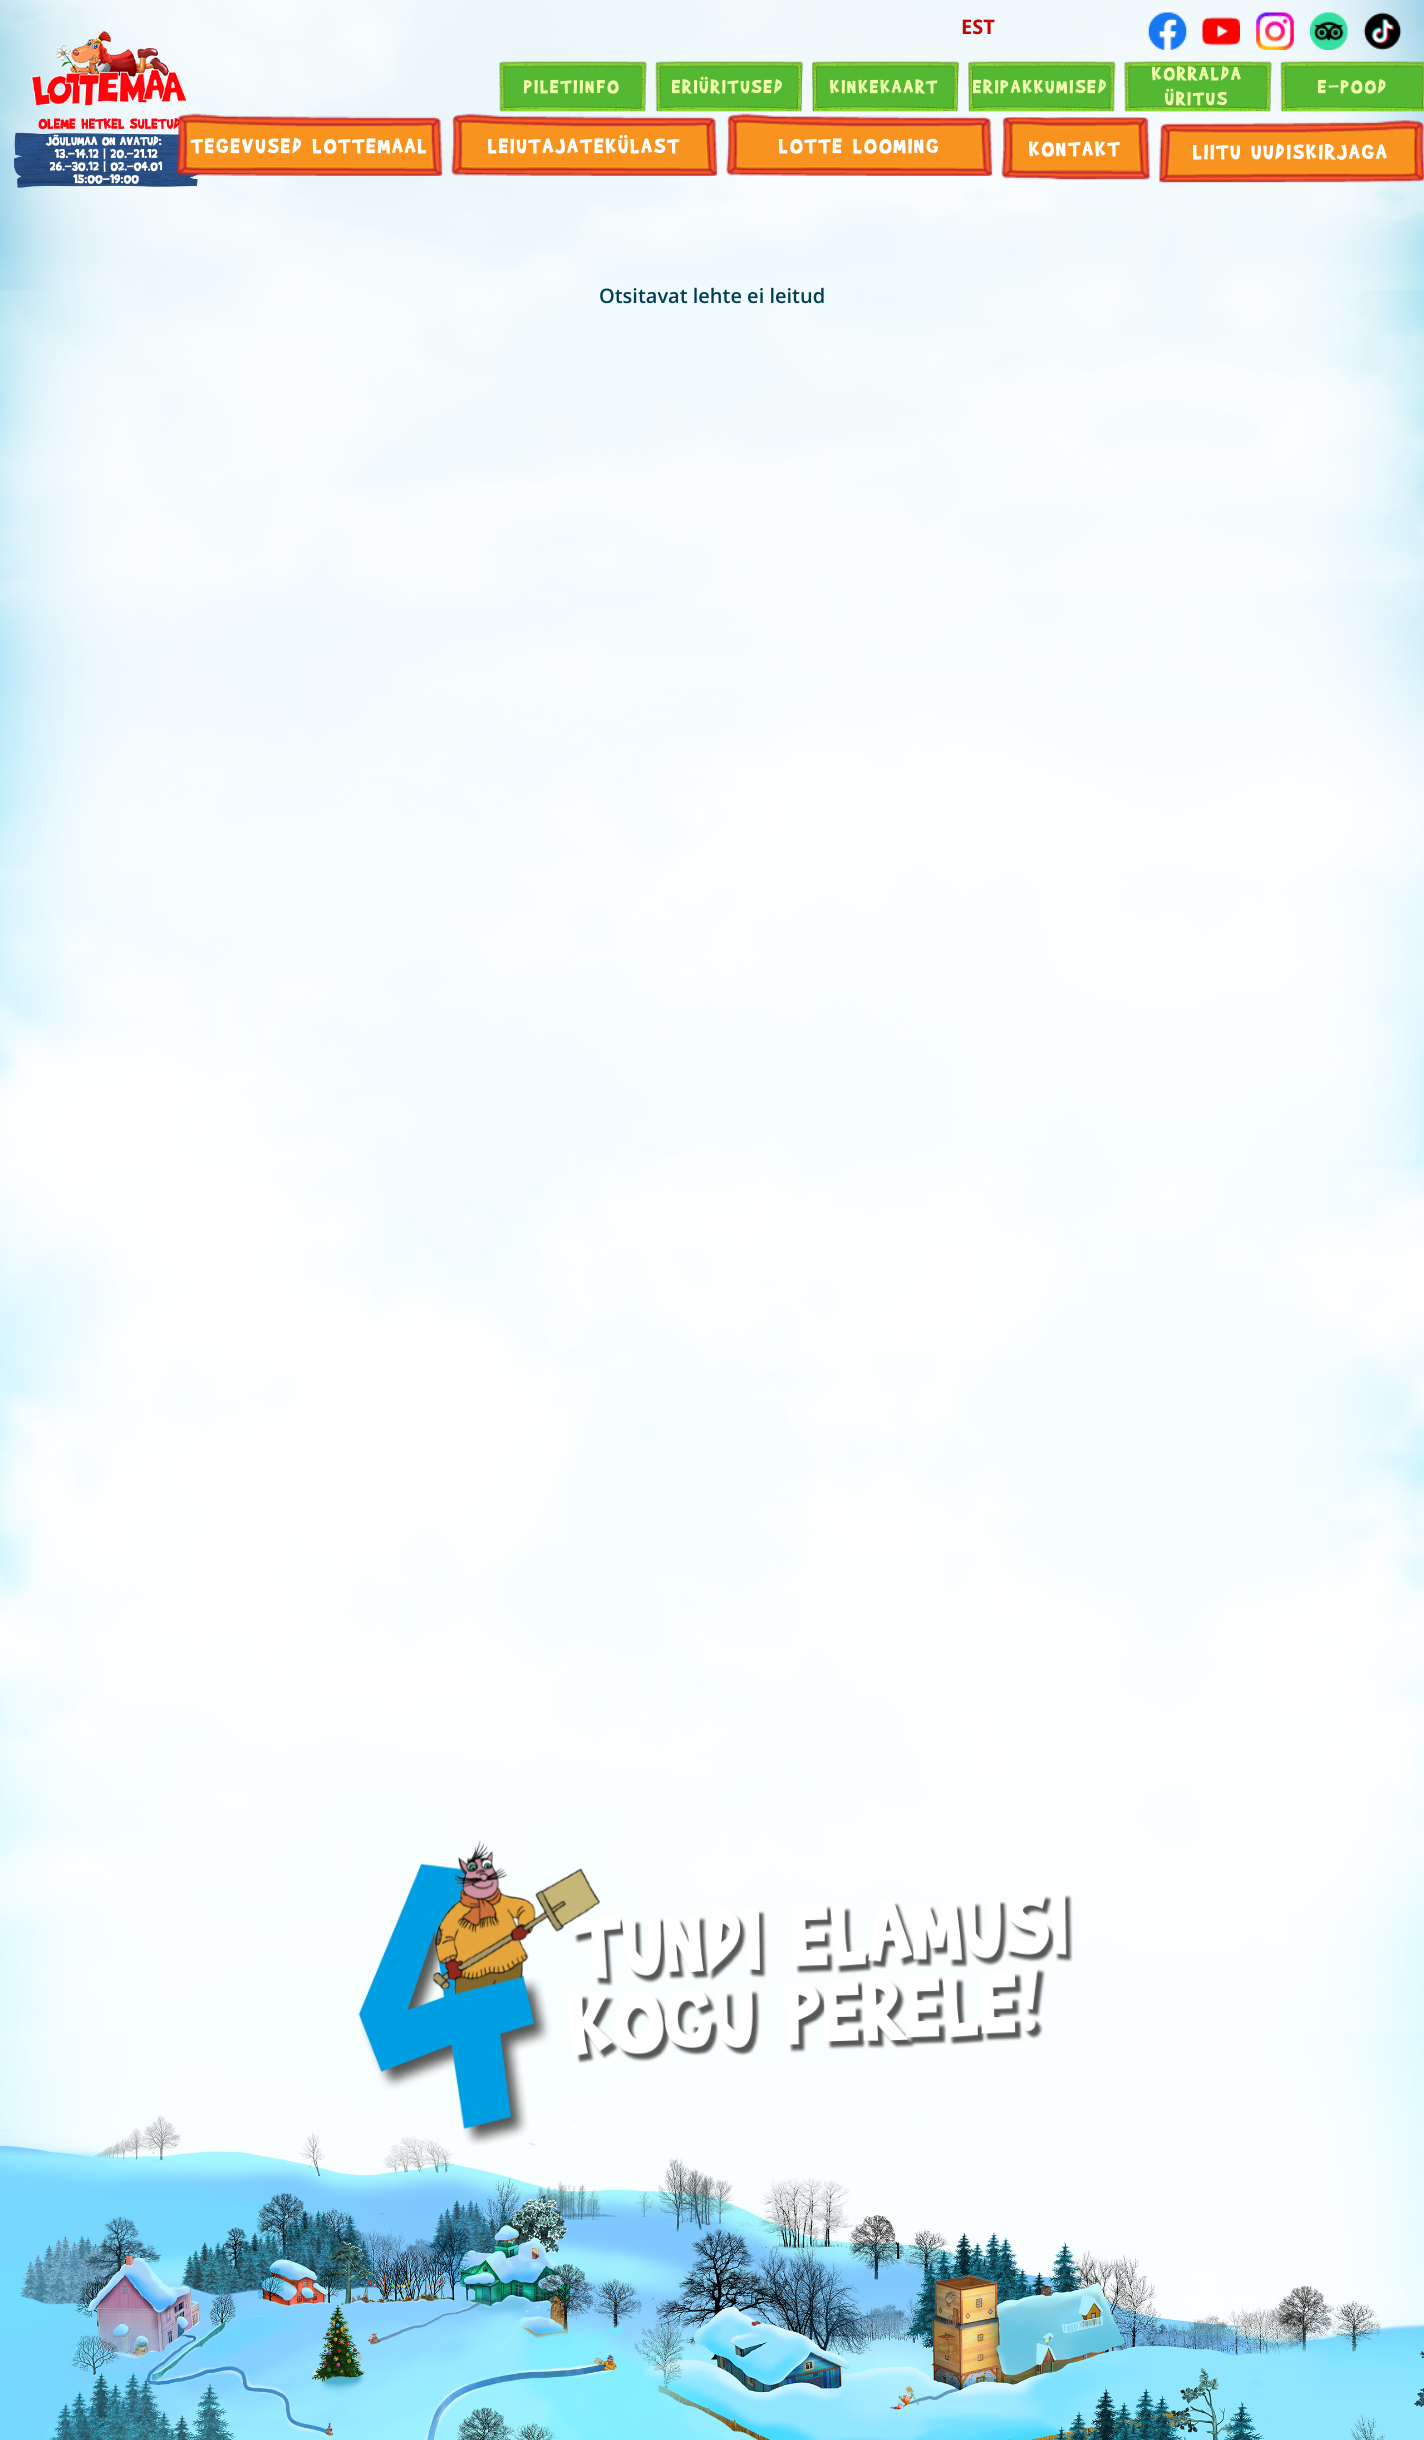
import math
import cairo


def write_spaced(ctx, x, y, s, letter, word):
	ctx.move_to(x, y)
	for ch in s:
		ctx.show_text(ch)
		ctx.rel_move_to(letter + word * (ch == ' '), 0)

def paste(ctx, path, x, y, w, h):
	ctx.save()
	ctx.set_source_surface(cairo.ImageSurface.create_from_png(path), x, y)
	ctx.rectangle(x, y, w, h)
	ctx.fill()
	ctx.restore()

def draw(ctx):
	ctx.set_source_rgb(1, 1, 1)
	ctx.paint()
	paste(ctx, 'media/1.png', 0, 0, 1424, 2344)
	paste(ctx, 'media/2.png', 0, 0, 1424, 2344)
	ctx.select_font_face('Open Sans', cairo.FONT_SLANT_NORMAL, cairo.FONT_WEIGHT_BOLD)
	ctx.set_font_size(20)
	ctx.set_source_rgb(0.776, 0.012, 0)
	ctx.move_to(961, 34)
	ctx.show_text('EST')
	paste(ctx, 'media/3.png', 1148, 12, 39, 38)
	paste(ctx, 'media/4.png', 1202, 17, 38, 29)
	paste(ctx, 'media/5.png', 1256, 12, 38, 38)
	paste(ctx, 'media/6.png', 1310, 12, 38, 38)
	paste(ctx, 'media/7.png', 1363, 12, 39, 38)
	paste(ctx, 'media/8.png', 31, 31, 157, 76)
	paste(ctx, 'media/9.png', 499, 61, 148, 51)
	ctx.select_font_face('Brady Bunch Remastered')
	ctx.set_font_size(22.5)
	ctx.set_source_rgb(0.937, 1, 0.671)
	write_spaced(ctx, 524, 93, 'PILETIINFO', 2.1, 0)
	paste(ctx, 'media/10.png', 655, 61, 148, 51)
	write_spaced(ctx, 672, 93, 'ERIÜRITUSED', 2.1, 0)
	paste(ctx, 'media/11.png', 812, 61, 148, 51)
	write_spaced(ctx, 830, 93, 'KINKEKAART', 2.1, 0)
	paste(ctx, 'media/12.png', 968, 61, 148, 51)
	write_spaced(ctx, 973, 93, 'ERIPAKKUMISED', 2.1, 0)
	paste(ctx, 'media/13.png', 1124, 61, 148, 51)
	write_spaced(ctx, 1152, 80, 'KORRALDA', 2.1, 0)
	write_spaced(ctx, 1165, 105, 'ÜRITUS', 2.1, 0)
	paste(ctx, 'media/14.png', 1280, 61, 144, 51)
	write_spaced(ctx, 1318, 93, 'E-POOD', 2.1, 0)
	paste(ctx, 'media/15.png', 13, 117, 187, 71)
	paste(ctx, 'media/16.png', 176, 113, 267, 63)
	ctx.set_font_size(25)
	ctx.set_source_rgb(1, 1, 1)
	write_spaced(ctx, 191, 153, 'TEGEVUSED LOTTEMAAL', 2.1, 0)
	paste(ctx, 'media/17.png', 451, 113, 267, 63)
	write_spaced(ctx, 488, 153, 'LEIUTAJATEKÜLAST', 2.1, 0)
	paste(ctx, 'media/18.png', 726, 113, 267, 63)
	write_spaced(ctx, 779, 153, 'LOTTE LOOMING', 2.1, 0)
	paste(ctx, 'media/19.png', 1001, 117, 149, 63)
	write_spaced(ctx, 1029, 156, 'KONTAKT', 2.1, 0)
	paste(ctx, 'media/20.png', 1159, 120, 265, 63)
	write_spaced(ctx, 1193, 159, 'LIITU UUDISKIRJAGA', 2.1, 0)
	ctx.select_font_face('Open Sans SemiBold')
	ctx.set_font_size(20)
	ctx.set_source_rgb(0, 0.243, 0.325)
	ctx.move_to(599, 303)
	ctx.show_text('Otsitavat lehte ei leitud')
	paste(ctx, 'media/22.png', 0, 2115, 1424, 325)
	paste(ctx, 'media/21.png', 358, 1840, 715, 306)


surface = cairo.ImageSurface(cairo.FORMAT_RGB24, 1424, 2440)
ctx = cairo.Context(surface)
options = cairo.FontOptions()
options.set_hint_metrics(cairo.HINT_METRICS_OFF)
options.set_hint_style(cairo.HINT_STYLE_NONE)
ctx.set_font_options(options)
ctx.set_miter_limit(4)
draw(ctx)
surface.write_to_png('image.png')
